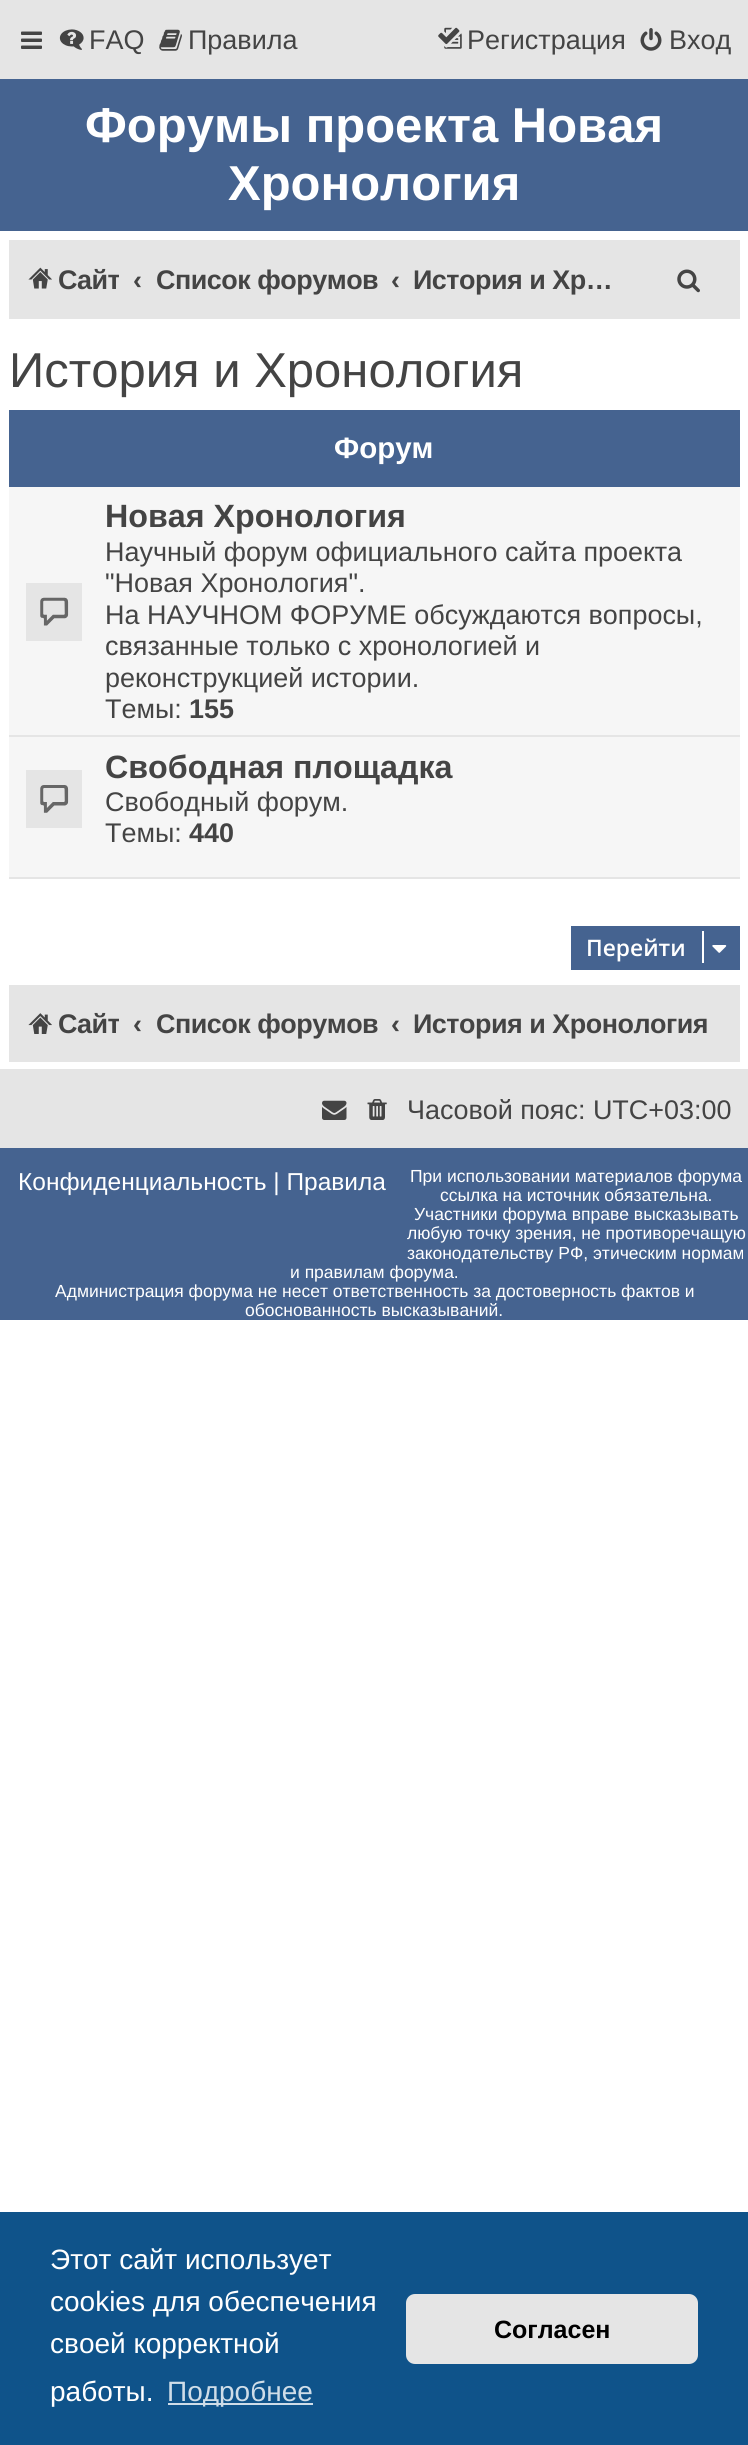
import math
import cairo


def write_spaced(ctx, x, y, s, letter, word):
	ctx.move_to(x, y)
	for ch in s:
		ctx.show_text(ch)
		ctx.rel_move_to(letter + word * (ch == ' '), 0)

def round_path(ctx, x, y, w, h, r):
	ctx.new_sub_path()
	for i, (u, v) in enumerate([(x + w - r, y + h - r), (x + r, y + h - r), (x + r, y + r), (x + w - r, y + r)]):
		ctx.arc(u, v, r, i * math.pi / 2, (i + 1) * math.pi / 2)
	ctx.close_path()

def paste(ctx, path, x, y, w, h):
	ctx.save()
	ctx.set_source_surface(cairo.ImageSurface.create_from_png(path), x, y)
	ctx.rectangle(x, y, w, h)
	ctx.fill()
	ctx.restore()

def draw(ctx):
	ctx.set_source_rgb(1, 1, 1)
	ctx.paint()
	ctx.set_source_rgb(0.898, 0.898, 0.898)
	ctx.rectangle(0, 0, 748, 79)
	ctx.fill()
	paste(ctx, 'media/1.png', 21, 31, 21, 18)
	paste(ctx, 'media/2.png', 59, 29, 25, 21)
	ctx.select_font_face('Liberation Sans')
	ctx.set_font_size(26.95)
	ctx.set_source_rgb(0.267, 0.267, 0.267)
	ctx.move_to(89, 49)
	ctx.show_text('FAQ')
	paste(ctx, 'media/3.png', 159, 29, 23, 22)
	ctx.move_to(188, 49)
	ctx.show_text('Правила')
	paste(ctx, 'media/4.png', 438, 27, 24, 22)
	ctx.move_to(467, 49)
	ctx.show_text('Регистрация')
	paste(ctx, 'media/5.png', 640, 28, 22, 23)
	ctx.move_to(669, 49)
	ctx.show_text('Вход')
	ctx.set_source_rgb(0.271, 0.388, 0.565)
	ctx.rectangle(0, 79, 748, 152)
	ctx.fill()
	ctx.select_font_face('Liberation Sans', cairo.FONT_SLANT_NORMAL, cairo.FONT_WEIGHT_BOLD)
	ctx.set_font_size(49)
	ctx.set_source_rgb(1, 1, 1)
	ctx.move_to(85, 142)
	ctx.show_text('Форумы проекта Новая')
	ctx.move_to(228, 200)
	ctx.show_text('Хронология')
	ctx.set_source_rgb(0.898, 0.898, 0.898)
	ctx.rectangle(9, 240, 731, 79)
	ctx.fill()
	paste(ctx, 'media/6.png', 28, 267, 24, 22)
	ctx.save()
	ctx.rectangle(26, 250, 93, 60)
	ctx.clip()
	ctx.set_font_size(26.95)
	ctx.set_source_rgb(0.267, 0.267, 0.267)
	write_spaced(ctx, 58, 289, 'Сайт', -0.5, 0)
	ctx.restore()
	ctx.set_font_size(26.95)
	ctx.set_source_rgb(0.267, 0.267, 0.267)
	ctx.move_to(133, 289)
	ctx.show_text('‹')
	write_spaced(ctx, 156, 289, 'Список форумов', -0.5, 0)
	ctx.move_to(391, 289)
	ctx.show_text('‹')
	write_spaced(ctx, 413, 289, 'История и Хр…', -0.5, 0)
	paste(ctx, 'media/7.png', 677, 269, 23, 24)
	ctx.select_font_face('Liberation Sans')
	ctx.set_font_size(49)
	ctx.move_to(9, 387)
	ctx.show_text('История и Хронология')
	ctx.set_source_rgb(0.271, 0.388, 0.565)
	ctx.rectangle(9, 410, 731, 77)
	ctx.fill()
	ctx.select_font_face('Liberation Sans', cairo.FONT_SLANT_NORMAL, cairo.FONT_WEIGHT_BOLD)
	ctx.set_font_size(29.5)
	ctx.set_source_rgb(1, 1, 1)
	ctx.move_to(334, 458)
	ctx.show_text('Форум')
	ctx.set_source_rgb(0.961, 0.961, 0.961)
	ctx.rectangle(9, 487, 731, 390)
	ctx.fill()
	ctx.set_source_rgb(0.898, 0.898, 0.898)
	ctx.rectangle(9, 735, 731, 2)
	ctx.rectangle(26, 583, 56, 58)
	ctx.fill()
	paste(ctx, 'media/8.png', 40, 597, 29, 29)
	ctx.set_font_size(32.25)
	ctx.set_source_rgb(0.267, 0.267, 0.267)
	ctx.move_to(105, 527)
	ctx.show_text('Новая Хронология')
	ctx.select_font_face('Liberation Sans')
	ctx.set_font_size(26.95)
	for x, y, s in [
		(105, 561, 'Научный форум официального сайта проекта'),
		(105, 592, '"Новая Хронология".'),
		(105, 624, 'На НАУЧНОМ ФОРУМЕ обсуждаются вопросы,'),
		(105, 655, 'связанные только с хронологией и'),
		(105, 687, 'реконструкцией истории.'),
		(105, 718, 'Темы:'),
	]:
		ctx.move_to(x, y)
		ctx.show_text(s)
	ctx.select_font_face('Liberation Sans', cairo.FONT_SLANT_NORMAL, cairo.FONT_WEIGHT_BOLD)
	ctx.move_to(189, 718)
	ctx.show_text('155')
	ctx.set_source_rgb(0.898, 0.898, 0.898)
	ctx.rectangle(9, 877, 731, 2)
	ctx.fill()
	ctx.rectangle(26, 770, 56, 58)
	ctx.fill()
	paste(ctx, 'media/9.png', 40, 785, 29, 28)
	ctx.set_font_size(32.25)
	ctx.set_source_rgb(0.267, 0.267, 0.267)
	ctx.move_to(105, 778)
	ctx.show_text('Свободная площадка')
	ctx.select_font_face('Liberation Sans')
	ctx.set_font_size(26.95)
	ctx.move_to(105, 811)
	ctx.show_text('Свободный форум.')
	ctx.move_to(105, 842)
	ctx.show_text('Темы:')
	ctx.select_font_face('Liberation Sans', cairo.FONT_SLANT_NORMAL, cairo.FONT_WEIGHT_BOLD)
	ctx.move_to(189, 842)
	ctx.show_text('440')
	ctx.set_source_rgb(0.271, 0.388, 0.565)
	ctx.rectangle(571, 926, 169, 44)
	ctx.fill()
	ctx.select_font_face('Open Sans SemiBold')
	ctx.set_font_size(22.75)
	ctx.set_source_rgb(1, 1, 1)
	ctx.move_to(586, 956)
	ctx.show_text('Перейти')
	ctx.rectangle(702, 931, 2, 32)
	ctx.fill()
	paste(ctx, 'media/10.png', 712, 945, 15, 8)
	ctx.set_source_rgb(0.898, 0.898, 0.898)
	ctx.rectangle(9, 985, 731, 77)
	ctx.fill()
	paste(ctx, 'media/11.png', 28, 1013, 24, 21)
	ctx.save()
	ctx.rectangle(26, 996, 93, 58)
	ctx.clip()
	ctx.select_font_face('Liberation Sans', cairo.FONT_SLANT_NORMAL, cairo.FONT_WEIGHT_BOLD)
	ctx.set_font_size(26.95)
	ctx.set_source_rgb(0.267, 0.267, 0.267)
	write_spaced(ctx, 58, 1033, 'Сайт', -0.5, 0)
	ctx.restore()
	ctx.select_font_face('Liberation Sans', cairo.FONT_SLANT_NORMAL, cairo.FONT_WEIGHT_BOLD)
	ctx.set_font_size(26.95)
	ctx.set_source_rgb(0.267, 0.267, 0.267)
	ctx.move_to(133, 1033)
	ctx.show_text('‹')
	write_spaced(ctx, 156, 1033, 'Список форумов', -0.5, 0)
	ctx.move_to(391, 1033)
	ctx.show_text('‹')
	write_spaced(ctx, 413, 1033, 'История и Хронология', -0.5, 0)
	ctx.set_source_rgb(0.898, 0.898, 0.898)
	ctx.rectangle(0, 1069, 748, 79)
	ctx.fill()
	paste(ctx, 'media/12.png', 322, 1100, 25, 20)
	paste(ctx, 'media/13.png', 367, 1099, 20, 21)
	ctx.select_font_face('Liberation Sans')
	ctx.set_source_rgb(0.267, 0.267, 0.267)
	ctx.move_to(407, 1119)
	ctx.show_text('Часовой пояс: UTC+03:00')
	ctx.set_source_rgb(0.271, 0.388, 0.565)
	ctx.rectangle(0, 1148, 748, 172)
	ctx.fill()
	ctx.set_font_size(17.5)
	ctx.set_source_rgb(1, 1, 1)
	for x, y, s in [
		(410, 1182, 'При использовании материалов форума'),
		(440, 1201, 'ссылка на источник обязательна.'),
		(414, 1220, 'Участники форума вправе высказывать'),
		(407, 1239, 'любую точку зрения, не противоречащую'),
		(407, 1259, 'законодательству РФ, этическим нормам'),
		(290, 1278, 'и правилам форума.'),
		(55, 1297, 'Администрация форума не несет ответственность за достоверность фактов и'),
		(245, 1316, 'обоснованность высказываний.'),
	]:
		ctx.move_to(x, y)
		ctx.show_text(s)
	ctx.set_font_size(24.5)
	ctx.move_to(18, 1190)
	ctx.show_text('Конфиденциальность | Правила')
	ctx.set_source_rgb(0.059, 0.325, 0.541)
	ctx.rectangle(0, 2212, 748, 233)
	ctx.fill()
	ctx.set_font_size(28)
	ctx.set_source_rgb(1, 1, 1)
	for x, y, s in [
		(50, 2269, 'Этот сайт использует'),
		(50, 2311, 'cookies для обеспечения'),
		(50, 2353, 'своей корректной'),
		(50, 2401, 'работы.'),
	]:
		ctx.move_to(x, y)
		ctx.show_text(s)
	ctx.set_source_rgb(0.812, 0.867, 0.91)
	ctx.rectangle(168, 2403, 145, 2)
	ctx.fill()
	ctx.move_to(167, 2401)
	ctx.show_text('Подробнее')
	ctx.set_source_rgb(0.898, 0.898, 0.898)
	round_path(ctx, 406, 2294, 292, 70, 9)
	ctx.fill()
	ctx.select_font_face('Liberation Sans', cairo.FONT_SLANT_NORMAL, cairo.FONT_WEIGHT_BOLD)
	ctx.set_font_size(25)
	ctx.set_source_rgb(0, 0, 0)
	ctx.move_to(494, 2338)
	ctx.show_text('Согласен')


surface = cairo.ImageSurface(cairo.FORMAT_RGB24, 748, 2445)
ctx = cairo.Context(surface)
options = cairo.FontOptions()
options.set_hint_metrics(cairo.HINT_METRICS_OFF)
options.set_hint_style(cairo.HINT_STYLE_NONE)
ctx.set_font_options(options)
ctx.set_miter_limit(4)
draw(ctx)
surface.write_to_png('image.png')
